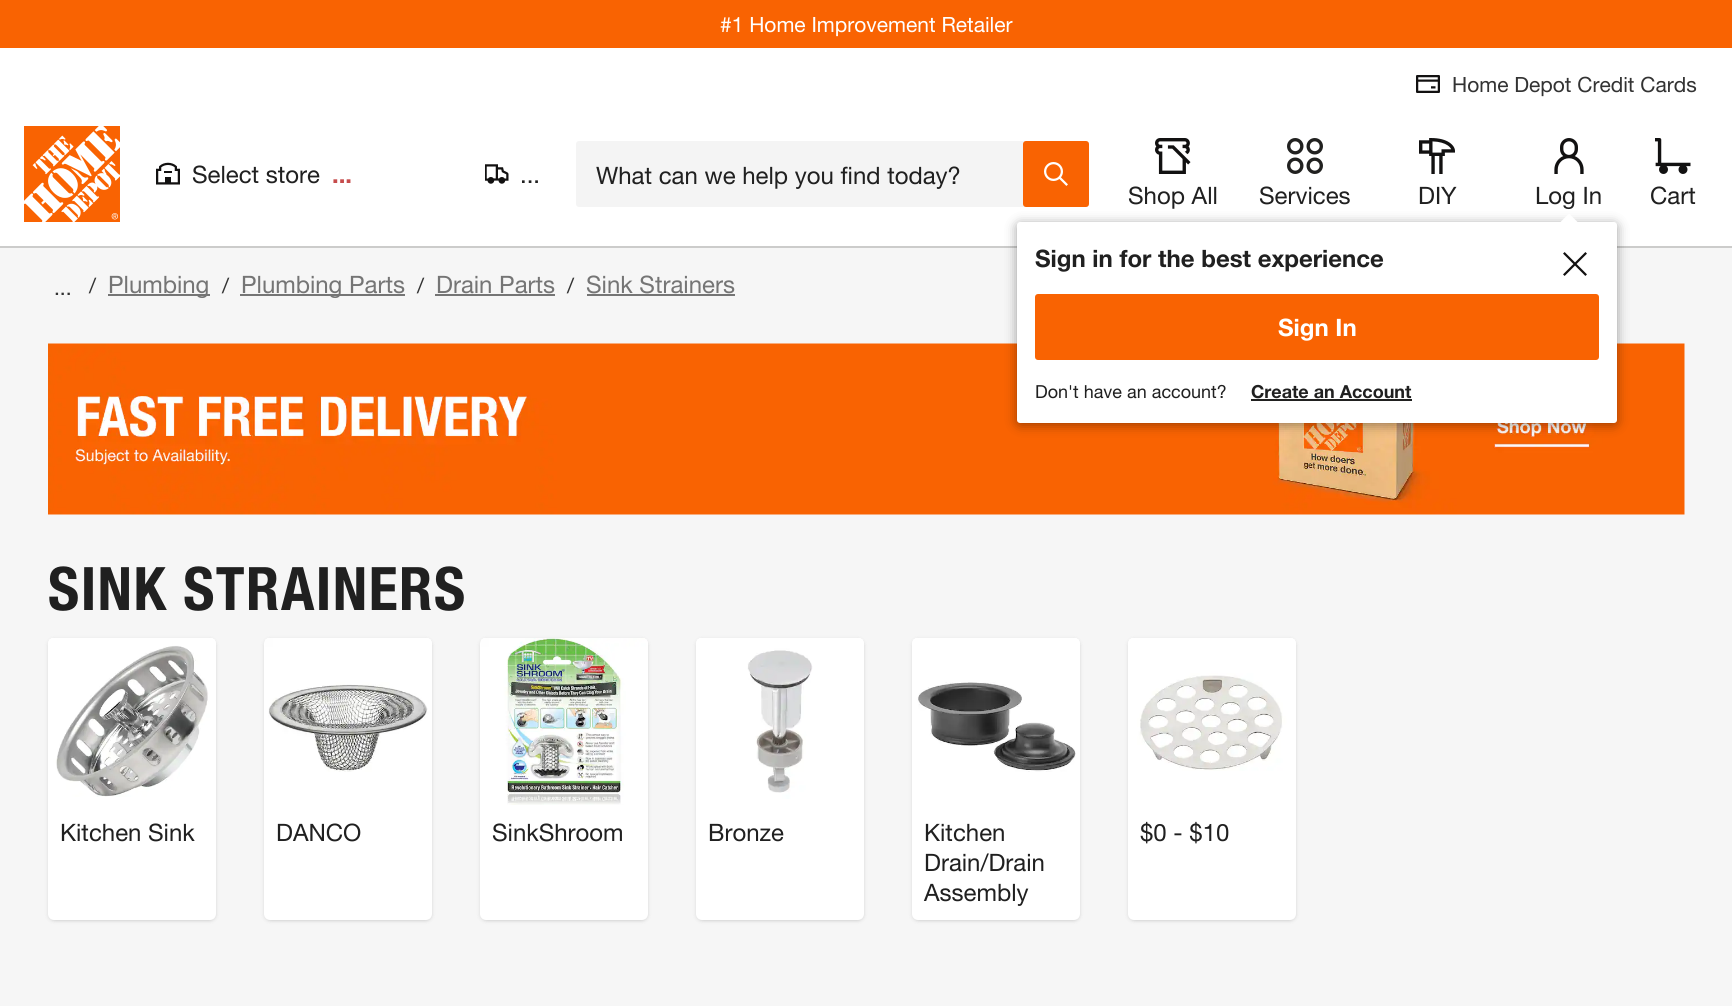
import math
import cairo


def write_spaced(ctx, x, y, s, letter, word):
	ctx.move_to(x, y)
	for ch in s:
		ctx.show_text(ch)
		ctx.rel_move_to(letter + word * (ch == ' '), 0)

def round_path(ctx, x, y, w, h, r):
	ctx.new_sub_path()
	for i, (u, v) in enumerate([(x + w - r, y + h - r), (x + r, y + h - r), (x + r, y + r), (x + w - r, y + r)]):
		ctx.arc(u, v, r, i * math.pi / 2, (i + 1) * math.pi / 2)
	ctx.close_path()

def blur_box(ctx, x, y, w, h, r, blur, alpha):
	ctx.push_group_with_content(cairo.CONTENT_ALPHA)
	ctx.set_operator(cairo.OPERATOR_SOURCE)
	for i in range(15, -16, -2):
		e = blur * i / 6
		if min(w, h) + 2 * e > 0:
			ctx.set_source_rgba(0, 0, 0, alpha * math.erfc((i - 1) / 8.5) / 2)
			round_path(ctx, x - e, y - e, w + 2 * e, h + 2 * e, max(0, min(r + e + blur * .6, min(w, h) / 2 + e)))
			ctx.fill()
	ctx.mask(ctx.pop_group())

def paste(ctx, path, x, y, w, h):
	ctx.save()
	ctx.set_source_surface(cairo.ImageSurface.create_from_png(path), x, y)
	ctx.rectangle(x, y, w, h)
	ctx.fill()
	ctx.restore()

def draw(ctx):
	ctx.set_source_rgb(1, 1, 1)
	ctx.paint()
	ctx.set_source_rgb(0.976, 0.388, 0.008)
	ctx.rectangle(0, 0, 1732, 48)
	ctx.fill()
	ctx.select_font_face('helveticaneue')
	ctx.set_font_size(21)
	ctx.set_source_rgb(1, 1, 1)
	ctx.move_to(720, 32)
	ctx.show_text('#1 Home Improvement Retailer')
	ctx.set_source_rgb(0.8, 0.8, 0.796)
	ctx.rectangle(0, 246, 1732, 2)
	ctx.fill()
	paste(ctx, 'media/1.png', 1416, 75, 24, 18)
	ctx.set_source_rgb(0.2, 0.2, 0.2)
	ctx.move_to(1452, 92)
	ctx.show_text('Home Depot Credit Cards')
	paste(ctx, 'media/2.png', 24, 126, 96, 96)
	paste(ctx, 'media/3.png', 156, 162, 24, 23)
	ctx.set_font_size(24)
	ctx.set_source_rgb(0.125, 0.125, 0.125)
	ctx.move_to(192, 183)
	ctx.show_text('Select store')
	ctx.select_font_face('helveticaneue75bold', cairo.FONT_SLANT_NORMAL, cairo.FONT_WEIGHT_BOLD)
	ctx.set_source_rgb(0.776, 0.298, 0.298)
	ctx.move_to(332, 183)
	ctx.show_text('...')
	paste(ctx, 'media/4.png', 485, 164, 24, 20)
	ctx.select_font_face('helveticaneue')
	ctx.set_source_rgb(0.125, 0.125, 0.125)
	ctx.move_to(520, 183)
	ctx.show_text('...')
	ctx.set_source_rgb(0.957, 0.957, 0.957)
	round_path(ctx, 576, 141, 513, 66, 3)
	ctx.fill()
	ctx.set_source_rgb(0.125, 0.125, 0.125)
	ctx.move_to(596, 184)
	ctx.show_text('What can we help you find today?')
	ctx.set_source_rgb(0.976, 0.388, 0.008)
	round_path(ctx, 1023, 141, 66, 66, 3)
	ctx.fill()
	paste(ctx, 'media/5.png', 1044, 162, 24, 24)
	paste(ctx, 'media/6.png', 1155, 138, 36, 36)
	ctx.set_source_rgb(0.125, 0.125, 0.125)
	ctx.move_to(1128, 204)
	ctx.show_text('Shop All')
	paste(ctx, 'media/7.png', 1287, 138, 36, 36)
	ctx.move_to(1259, 204)
	ctx.show_text('Services')
	paste(ctx, 'media/8.png', 1419, 138, 36, 36)
	ctx.move_to(1418, 204)
	ctx.show_text('DIY')
	paste(ctx, 'media/9.png', 1554, 138, 30, 36)
	ctx.move_to(1535, 204)
	ctx.show_text('Log In')
	ctx.set_source_rgb(0.961, 0.961, 0.961)
	ctx.rectangle(0, 248, 1732, 758)
	ctx.fill()
	paste(ctx, 'media/12.png', 48, 343, 1637, 172)
	ctx.set_source_rgb(0, 0, 0)
	blur_box(ctx, 1017, 224, 600, 201, 3, 6, 0.38)
	ctx.set_source_rgb(1, 1, 1)
	round_path(ctx, 1017, 222, 600, 201, 3)
	ctx.fill()
	ctx.new_path()
	ctx.move_to(1569, 213.5)
	ctx.line_to(1577.5, 222)
	ctx.line_to(1560.5, 222)
	ctx.close_path()
	ctx.fill()
	ctx.select_font_face('helveticaneue75bold', cairo.FONT_SLANT_NORMAL, cairo.FONT_WEIGHT_BOLD)
	ctx.set_source_rgb(0.125, 0.125, 0.125)
	ctx.move_to(1035, 267)
	ctx.show_text('Sign in for the best experience')
	paste(ctx, 'media/10.png', 1563, 252, 24, 24)
	ctx.set_source_rgb(0.976, 0.388, 0.008)
	round_path(ctx, 1035, 294, 564, 66, 3)
	ctx.fill()
	ctx.set_source_rgb(1, 1, 1)
	ctx.move_to(1278, 336)
	ctx.show_text('Sign In')
	ctx.select_font_face('helveticaneue')
	ctx.set_font_size(18)
	ctx.set_source_rgb(0.125, 0.125, 0.125)
	ctx.move_to(1035, 398)
	ctx.show_text('Don\'t have an account?')
	ctx.select_font_face('helveticaneue75bold', cairo.FONT_SLANT_NORMAL, cairo.FONT_WEIGHT_BOLD)
	ctx.move_to(1251, 398)
	ctx.show_text('Create an Account')
	ctx.set_source_rgb(0.129, 0.129, 0.125)
	ctx.rectangle(1251, 399, 161, 2)
	ctx.fill()
	paste(ctx, 'media/11.png', 1655, 138, 36, 36)
	ctx.select_font_face('helveticaneue')
	ctx.set_font_size(24)
	ctx.set_source_rgb(0.125, 0.125, 0.125)
	ctx.move_to(1650, 204)
	ctx.show_text('Cart')
	ctx.set_font_size(21)
	ctx.set_source_rgb(0.2, 0.2, 0.2)
	ctx.move_to(54, 295)
	ctx.show_text('...')
	ctx.move_to(89, 293)
	ctx.show_text('/')
	ctx.set_source_rgb(0.459, 0.459, 0.459)
	ctx.rectangle(108, 294, 102, 2)
	ctx.fill()
	ctx.set_font_size(24)
	ctx.move_to(108, 293)
	ctx.show_text('Plumbing')
	ctx.set_font_size(21)
	ctx.set_source_rgb(0.2, 0.2, 0.2)
	ctx.move_to(222, 293)
	ctx.show_text('/')
	ctx.set_source_rgb(0.459, 0.459, 0.459)
	ctx.rectangle(240, 294, 165, 2)
	ctx.fill()
	ctx.set_font_size(24)
	ctx.move_to(241, 293)
	ctx.show_text('Plumbing Parts')
	ctx.set_font_size(21)
	ctx.set_source_rgb(0.2, 0.2, 0.2)
	ctx.move_to(417, 293)
	ctx.show_text('/')
	ctx.set_font_size(24)
	ctx.set_source_rgb(0.459, 0.459, 0.459)
	ctx.move_to(436, 293)
	ctx.show_text('Drain Parts')
	ctx.rectangle(435, 294, 120, 2)
	ctx.fill()
	ctx.set_font_size(21)
	ctx.set_source_rgb(0.2, 0.2, 0.2)
	ctx.move_to(567, 293)
	ctx.show_text('/')
	ctx.set_font_size(24)
	ctx.set_source_rgb(0.459, 0.459, 0.459)
	ctx.move_to(586, 293)
	ctx.show_text('Sink Strainers')
	ctx.rectangle(587, 294, 148, 2)
	ctx.fill()
	ctx.select_font_face('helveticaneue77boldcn', cairo.FONT_SLANT_NORMAL, cairo.FONT_WEIGHT_BOLD)
	ctx.set_font_size(60)
	ctx.set_source_rgb(0.125, 0.125, 0.125)
	write_spaced(ctx, 48, 610, 'SINK STRAINERS', 1.5, 0)
	ctx.set_source_rgb(0, 0, 0)
	blur_box(ctx, 50, 641, 165, 279, 5, 1.5, 0.1)
	blur_box(ctx, 48, 639, 168, 282, 6, 2, 0.1)
	ctx.set_source_rgb(1, 1, 1)
	round_path(ctx, 48, 638, 168, 282, 6)
	ctx.fill()
	paste(ctx, 'media/13.png', 48, 638, 168, 159)
	ctx.select_font_face('helveticaneue')
	ctx.set_font_size(24)
	ctx.set_source_rgb(0.125, 0.125, 0.125)
	ctx.move_to(60, 841)
	ctx.show_text('Kitchen Sink')
	ctx.set_source_rgb(0, 0, 0)
	blur_box(ctx, 266, 641, 165, 279, 5, 1.5, 0.1)
	blur_box(ctx, 264, 639, 168, 282, 6, 2, 0.1)
	ctx.set_source_rgb(1, 1, 1)
	round_path(ctx, 264, 638, 168, 282, 6)
	ctx.fill()
	paste(ctx, 'media/14.png', 265, 638, 167, 134)
	ctx.set_source_rgb(0.125, 0.125, 0.125)
	ctx.move_to(276, 841)
	ctx.show_text('DANCO')
	ctx.set_source_rgb(0, 0, 0)
	blur_box(ctx, 482, 641, 165, 279, 5, 1.5, 0.1)
	blur_box(ctx, 480, 639, 168, 282, 6, 2, 0.1)
	ctx.set_source_rgb(1, 1, 1)
	round_path(ctx, 480, 638, 168, 282, 6)
	ctx.fill()
	paste(ctx, 'media/15.png', 481, 638, 167, 167)
	ctx.set_source_rgb(0.125, 0.125, 0.125)
	ctx.move_to(492, 841)
	ctx.show_text('SinkShroom')
	ctx.set_source_rgb(0, 0, 0)
	blur_box(ctx, 698, 641, 165, 279, 5, 1.5, 0.1)
	blur_box(ctx, 696, 639, 168, 282, 6, 2, 0.1)
	ctx.set_source_rgb(1, 1, 1)
	round_path(ctx, 696, 638, 168, 282, 6)
	ctx.fill()
	paste(ctx, 'media/16.png', 696, 638, 168, 161)
	ctx.set_source_rgb(0.125, 0.125, 0.125)
	ctx.move_to(708, 841)
	ctx.show_text('Bronze')
	ctx.set_source_rgb(0, 0, 0)
	blur_box(ctx, 914, 641, 165, 279, 5, 1.5, 0.1)
	blur_box(ctx, 912, 639, 168, 282, 6, 2, 0.1)
	ctx.set_source_rgb(1, 1, 1)
	round_path(ctx, 912, 638, 168, 282, 6)
	ctx.fill()
	paste(ctx, 'media/17.png', 912, 638, 168, 134)
	ctx.set_source_rgb(0.125, 0.125, 0.125)
	for x, y, s in [
		(924, 841, 'Kitchen'),
		(924, 871, 'Drain/Drain'),
		(924, 901, 'Assembly'),
	]:
		ctx.move_to(x, y)
		ctx.show_text(s)
	ctx.set_source_rgb(0, 0, 0)
	blur_box(ctx, 1130, 641, 165, 279, 5, 1.5, 0.1)
	blur_box(ctx, 1128, 639, 168, 282, 6, 2, 0.1)
	ctx.set_source_rgb(1, 1, 1)
	round_path(ctx, 1128, 638, 168, 282, 6)
	ctx.fill()
	paste(ctx, 'media/18.png', 1128, 638, 168, 133)
	ctx.set_source_rgb(0.125, 0.125, 0.125)
	ctx.move_to(1140, 841)
	ctx.show_text('$0 - $10')


surface = cairo.ImageSurface(cairo.FORMAT_RGB24, 1732, 1006)
ctx = cairo.Context(surface)
options = cairo.FontOptions()
options.set_hint_metrics(cairo.HINT_METRICS_OFF)
options.set_hint_style(cairo.HINT_STYLE_NONE)
ctx.set_font_options(options)
ctx.set_miter_limit(4)
draw(ctx)
surface.write_to_png('image.png')
